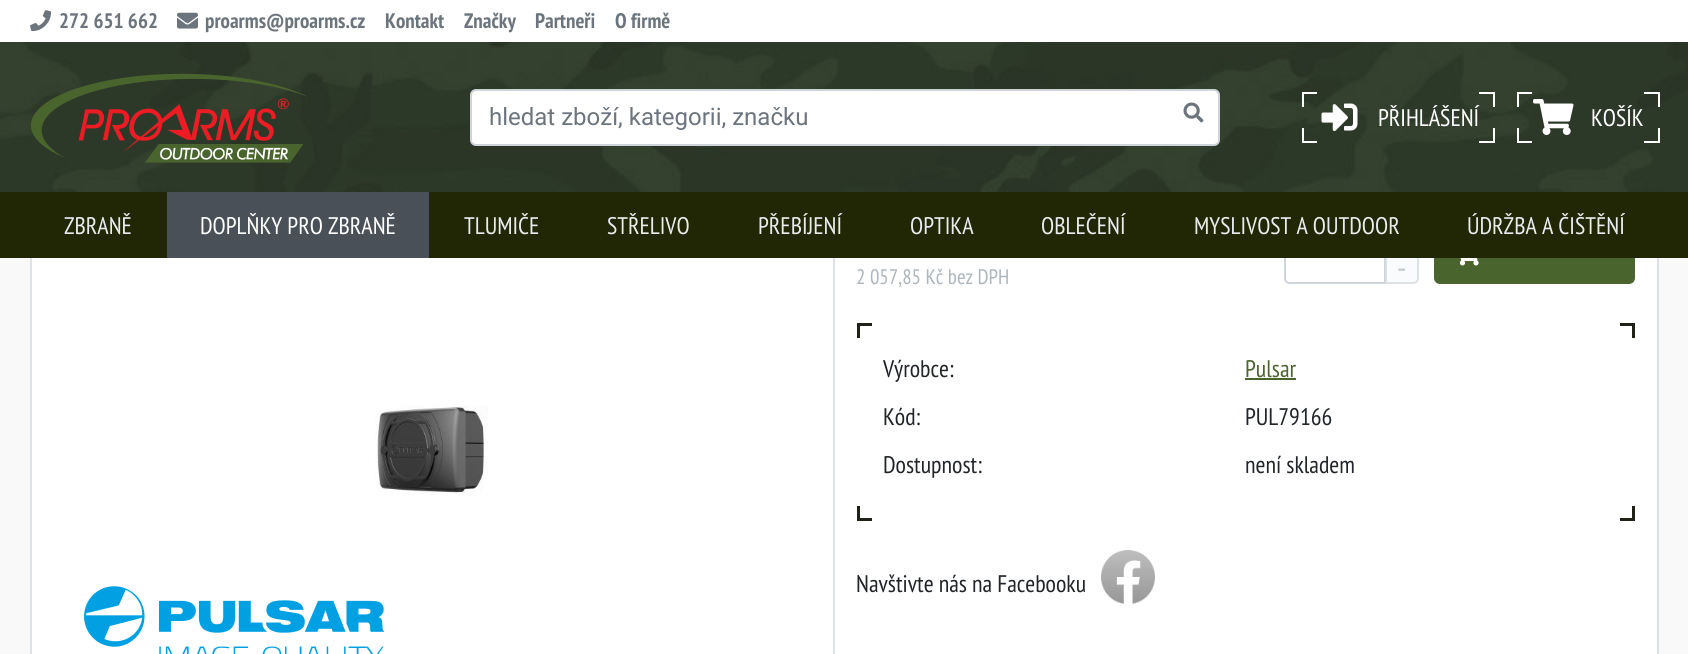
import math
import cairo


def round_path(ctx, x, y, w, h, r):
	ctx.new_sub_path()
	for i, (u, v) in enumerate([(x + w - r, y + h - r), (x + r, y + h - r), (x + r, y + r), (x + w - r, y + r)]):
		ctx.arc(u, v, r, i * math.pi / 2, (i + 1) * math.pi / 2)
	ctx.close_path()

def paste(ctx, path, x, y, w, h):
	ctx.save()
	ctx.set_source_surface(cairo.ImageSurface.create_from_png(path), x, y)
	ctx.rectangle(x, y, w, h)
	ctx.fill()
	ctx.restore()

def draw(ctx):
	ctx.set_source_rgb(0.973, 0.976, 0.98)
	ctx.paint()
	ctx.set_source_rgb(1, 1, 1)
	ctx.rectangle(32, 258, 1625, 396)
	ctx.fill()
	ctx.rectangle(31, 63, 1627, 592)
	ctx.set_source_rgb(0.871, 0.886, 0.902)
	ctx.stroke()
	paste(ctx, 'media/1.png', 0, 42, 1688, 150)
	ctx.set_source_rgb(1, 1, 1)
	ctx.rectangle(0, 0, 1688, 42)
	ctx.fill()
	paste(ctx, 'media/2.png', 30, 10, 21, 22)
	ctx.select_font_face('PT Sans Narrow', cairo.FONT_SLANT_NORMAL, cairo.FONT_WEIGHT_BOLD)
	ctx.set_font_size(21)
	ctx.set_source_rgb(0.424, 0.459, 0.49)
	ctx.move_to(59, 28)
	ctx.show_text('272 651 662')
	paste(ctx, 'media/3.png', 177, 12, 21, 17)
	for x, y, s in [
		(205, 28, 'proarms@proarms.cz'),
		(385, 28, 'Kontakt'),
		(464, 28, 'Značky'),
		(535, 28, 'Partneři'),
		(615, 28, 'O firmě'),
	]:
		ctx.move_to(x, y)
		ctx.show_text(s)
	paste(ctx, 'media/4.png', 31, 73, 277, 90)
	ctx.set_source_rgb(1, 1, 1)
	round_path(ctx, 471, 90, 748, 55, 5)
	ctx.fill_preserve()
	ctx.set_source_rgb(0.808, 0.831, 0.855)
	ctx.stroke()
	ctx.select_font_face('Roboto')
	ctx.set_font_size(24)
	ctx.set_source_rgb(0.424, 0.459, 0.49)
	ctx.move_to(489, 125)
	ctx.show_text('hledat zboží, kategorii, značku')
	paste(ctx, 'media/5.png', 1183, 102, 21, 21)
	ctx.set_source_rgb(1, 1, 1)
	ctx.rectangle(1302, 92, 15, 2)
	ctx.rectangle(1302, 92, 2, 15)
	ctx.rectangle(1479, 92, 15, 2)
	ctx.rectangle(1493, 92, 2, 15)
	ctx.fill()
	paste(ctx, 'media/6.png', 1321, 103, 37, 28)
	ctx.select_font_face('PT Sans Narrow')
	ctx.move_to(1378, 126)
	ctx.show_text('PŘIHLÁŠENÍ')
	ctx.rectangle(1302, 141, 15, 2)
	ctx.rectangle(1302, 128, 2, 15)
	ctx.rectangle(1493, 128, 2, 15)
	ctx.rectangle(1479, 141, 15, 2)
	ctx.rectangle(1517, 92, 15, 2)
	ctx.rectangle(1517, 92, 2, 15)
	ctx.rectangle(1644, 92, 15, 2)
	ctx.rectangle(1658, 92, 2, 15)
	ctx.fill()
	paste(ctx, 'media/7.png', 1533, 99, 41, 36)
	ctx.move_to(1591, 126)
	ctx.show_text('KOŠÍK')
	ctx.rectangle(1517, 141, 15, 2)
	ctx.rectangle(1517, 128, 2, 15)
	ctx.rectangle(1658, 128, 2, 15)
	ctx.rectangle(1644, 141, 15, 2)
	ctx.fill()
	ctx.new_path()
	ctx.move_to(1290, 228)
	ctx.line_to(1385, 228)
	ctx.line_to(1385, 283)
	ctx.line_to(1290, 283)
	ctx.curve_to(1287, 283, 1285, 281, 1285, 278)
	ctx.line_to(1285, 233)
	ctx.curve_to(1285, 230, 1287, 228, 1290, 228)
	ctx.close_path()
	ctx.set_source_rgb(0.808, 0.831, 0.855)
	ctx.stroke()
	ctx.set_source_rgba(0.973, 0.976, 0.98, 0.65)
	ctx.new_path()
	ctx.move_to(1385, 254)
	ctx.line_to(1419, 254)
	ctx.line_to(1419, 278)
	ctx.curve_to(1419, 281.5, 1416.5, 284, 1413, 284)
	ctx.line_to(1385, 284)
	ctx.close_path()
	ctx.fill()
	ctx.new_path()
	ctx.move_to(1386, 255)
	ctx.line_to(1418, 255)
	ctx.line_to(1418, 278)
	ctx.curve_to(1418, 281, 1416, 283, 1413, 283)
	ctx.line_to(1386, 283)
	ctx.close_path()
	ctx.set_source_rgba(0.808, 0.831, 0.855, 0.65)
	ctx.stroke()
	ctx.set_source_rgb(0.29, 0.392, 0.18)
	round_path(ctx, 1435, 228, 199, 55, 5)
	ctx.fill_preserve()
	ctx.stroke()
	ctx.set_source_rgb(0.129, 0.153, 0.02)
	ctx.rectangle(0, 192, 1688, 66)
	ctx.fill()
	ctx.set_source_rgb(0.914, 0.925, 0.937)
	ctx.move_to(64, 234)
	ctx.show_text('ZBRANĚ')
	ctx.set_source_rgb(0.286, 0.314, 0.341)
	ctx.rectangle(167, 192, 262, 66)
	ctx.fill()
	ctx.set_source_rgb(1, 1, 1)
	ctx.move_to(200, 234)
	ctx.show_text('DOPLŇKY PRO ZBRANĚ')
	ctx.set_source_rgb(0.914, 0.925, 0.937)
	for x, y, s in [
		(464, 234, 'TLUMIČE'),
		(607, 234, 'STŘELIVO'),
		(758, 234, 'PŘEBÍJENÍ'),
		(910, 234, 'OPTIKA'),
		(1041, 234, 'OBLEČENÍ'),
		(1194, 234, 'MYSLIVOST A OUTDOOR'),
		(1467, 234, 'ÚDRŽBA A ČIŠTĚNÍ'),
	]:
		ctx.move_to(x, y)
		ctx.show_text(s)
	ctx.set_source_rgb(0.871, 0.886, 0.902)
	ctx.rectangle(833, 258, 2, 396)
	ctx.fill()
	paste(ctx, 'media/8.png', 375, 405, 113, 90)
	paste(ctx, 'media/9.png', 84, 586, 300, 68)
	ctx.set_font_size(21)
	ctx.set_source_rgb(0.678, 0.71, 0.741)
	ctx.move_to(856, 284)
	ctx.show_text('2 057,85 Kč bez DPH')
	ctx.select_font_face('Roboto', cairo.FONT_SLANT_NORMAL, cairo.FONT_WEIGHT_BOLD)
	ctx.set_font_size(24)
	ctx.set_source_rgb(0.792, 0.812, 0.831)
	ctx.move_to(1397, 277)
	ctx.show_text('-')
	paste(ctx, 'media/10.png', 1459, 258, 20, 8)
	ctx.set_source_rgb(0.122, 0.133, 0.09)
	ctx.rectangle(857, 323, 15, 3)
	ctx.rectangle(857, 323, 3, 15)
	ctx.rectangle(1620, 323, 15, 3)
	ctx.rectangle(1632, 323, 3, 15)
	ctx.fill()
	ctx.select_font_face('PT Sans Narrow')
	ctx.set_source_rgb(0.129, 0.145, 0.161)
	ctx.move_to(883, 377)
	ctx.show_text('Výrobce:')
	ctx.set_source_rgb(0.29, 0.392, 0.18)
	ctx.move_to(1245, 377)
	ctx.show_text('Pulsar')
	ctx.rectangle(1245, 378, 51, 2)
	ctx.fill()
	ctx.set_source_rgb(0.129, 0.145, 0.161)
	for x, y, s in [
		(883, 425, 'Kód:'),
		(1245, 425, 'PUL79166'),
		(883, 473, 'Dostupnost:'),
		(1245, 473, 'není skladem'),
	]:
		ctx.move_to(x, y)
		ctx.show_text(s)
	ctx.set_source_rgb(0.122, 0.133, 0.09)
	ctx.rectangle(857, 518, 15, 3)
	ctx.rectangle(857, 506, 3, 15)
	ctx.rectangle(1632, 506, 3, 15)
	ctx.rectangle(1620, 518, 15, 3)
	ctx.fill()
	ctx.set_source_rgb(0.129, 0.145, 0.161)
	ctx.move_to(856, 592)
	ctx.show_text('Navštivte nás na Facebooku')
	paste(ctx, 'media/11.png', 1101, 550, 54, 54)


surface = cairo.ImageSurface(cairo.FORMAT_RGB24, 1688, 654)
ctx = cairo.Context(surface)
options = cairo.FontOptions()
options.set_hint_metrics(cairo.HINT_METRICS_OFF)
options.set_hint_style(cairo.HINT_STYLE_NONE)
ctx.set_font_options(options)
ctx.set_miter_limit(4)
draw(ctx)
surface.write_to_png('image.png')
